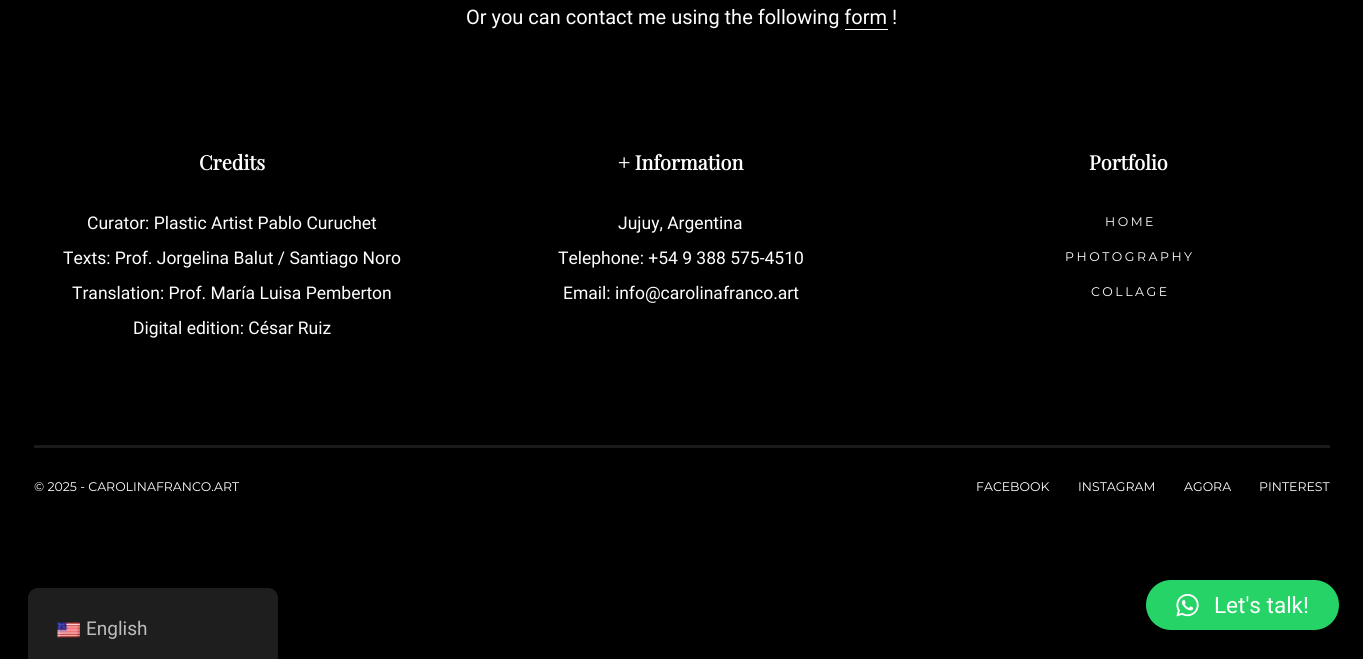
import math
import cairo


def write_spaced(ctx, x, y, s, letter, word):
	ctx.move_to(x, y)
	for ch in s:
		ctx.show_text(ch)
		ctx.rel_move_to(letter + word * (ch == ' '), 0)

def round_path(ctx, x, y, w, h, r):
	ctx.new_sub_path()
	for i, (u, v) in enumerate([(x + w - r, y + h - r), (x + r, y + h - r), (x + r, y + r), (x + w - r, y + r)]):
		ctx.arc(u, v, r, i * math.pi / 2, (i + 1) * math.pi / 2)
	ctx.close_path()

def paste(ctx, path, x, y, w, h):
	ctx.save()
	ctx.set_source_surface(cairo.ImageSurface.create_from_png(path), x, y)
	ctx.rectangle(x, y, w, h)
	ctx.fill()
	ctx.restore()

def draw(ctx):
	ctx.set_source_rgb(0, 0, 0)
	ctx.paint()
	ctx.select_font_face('Roboto')
	ctx.set_font_size(20)
	ctx.set_source_rgb(1, 1, 1)
	ctx.move_to(466, 24)
	ctx.show_text('Or you can contact me using the following form !')
	ctx.rectangle(845, 29, 43, 1)
	ctx.fill()
	ctx.set_source_rgb(0.102, 0.102, 0.102)
	ctx.rectangle(34, 445, 1296, 3)
	ctx.fill()
	ctx.select_font_face('Playfair Display', cairo.FONT_SLANT_NORMAL, cairo.FONT_WEIGHT_BOLD)
	ctx.set_source_rgb(1, 1, 1)
	ctx.move_to(199, 170)
	ctx.show_text('Credits')
	ctx.select_font_face('Roboto')
	ctx.set_font_size(17.5)
	for x, y, s in [
		(87, 229, 'Curator: Plastic Artist Pablo Curuchet'),
		(63, 264, 'Texts: Prof. Jorgelina Balut / Santiago Noro'),
		(72, 299, 'Translation: Prof. María Luisa Pemberton'),
		(133, 334, 'Digital edition: César Ruiz'),
	]:
		ctx.move_to(x, y)
		ctx.show_text(s)
	ctx.select_font_face('Playfair Display', cairo.FONT_SLANT_NORMAL, cairo.FONT_WEIGHT_BOLD)
	ctx.set_font_size(20)
	ctx.move_to(618, 170)
	ctx.show_text('+ Information')
	ctx.select_font_face('Roboto')
	ctx.set_font_size(17.5)
	for x, y, s in [
		(618, 229, 'Jujuy, Argentina'),
		(558, 264, 'Telephone: +54 9 388 575-4510'),
		(563, 299, 'Email: info@carolinafranco.art'),
	]:
		ctx.move_to(x, y)
		ctx.show_text(s)
	ctx.select_font_face('Playfair Display', cairo.FONT_SLANT_NORMAL, cairo.FONT_WEIGHT_BOLD)
	ctx.set_font_size(20)
	ctx.move_to(1089, 170)
	ctx.show_text('Portfolio')
	ctx.select_font_face('Montserrat')
	ctx.set_font_size(12.5)
	for x, y, s in [
		(1105, 226, 'HOME'),
		(1065, 261, 'PHOTOGRAPHY'),
		(1091, 296, 'COLLAGE'),
	]:
		write_spaced(ctx, x, y, s, 2.5, 0)
	for x, y, s in [
		(34, 491, '© 2025 - CAROLINAFRANCO.ART'),
		(976, 491, 'FACEBOOK'),
		(1078, 491, 'INSTAGRAM'),
		(1184, 491, 'AGORA'),
		(1259, 491, 'PINTEREST'),
	]:
		ctx.move_to(x, y)
		ctx.show_text(s)
	ctx.set_source_rgb(0.145, 0.827, 0.4)
	round_path(ctx, 1146, 580, 193, 50, 25)
	ctx.fill()
	paste(ctx, 'media/1.png', 1176, 593, 23, 24)
	ctx.select_font_face('Roboto')
	ctx.set_font_size(22.5)
	ctx.set_source_rgb(1, 1, 1)
	ctx.move_to(1214, 613)
	ctx.show_text('Let\'s talk!')
	ctx.set_source_rgb(0.118, 0.118, 0.118)
	ctx.new_path()
	ctx.move_to(38, 588)
	ctx.line_to(268, 588)
	ctx.curve_to(273.5, 588, 278, 592.5, 278, 598)
	ctx.line_to(278, 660)
	ctx.line_to(28, 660)
	ctx.line_to(28, 598)
	ctx.curve_to(28, 592.5, 32.5, 588, 38, 588)
	ctx.close_path()
	ctx.fill()
	paste(ctx, 'media/2.png', 57, 622, 23, 16)
	ctx.set_font_size(19)
	ctx.set_source_rgb(0.741, 0.741, 0.741)
	ctx.move_to(86, 635)
	ctx.show_text('English')


surface = cairo.ImageSurface(cairo.FORMAT_RGB24, 1363, 659)
ctx = cairo.Context(surface)
options = cairo.FontOptions()
options.set_hint_metrics(cairo.HINT_METRICS_OFF)
options.set_hint_style(cairo.HINT_STYLE_NONE)
ctx.set_font_options(options)
ctx.set_miter_limit(4)
draw(ctx)
surface.write_to_png('image.png')
